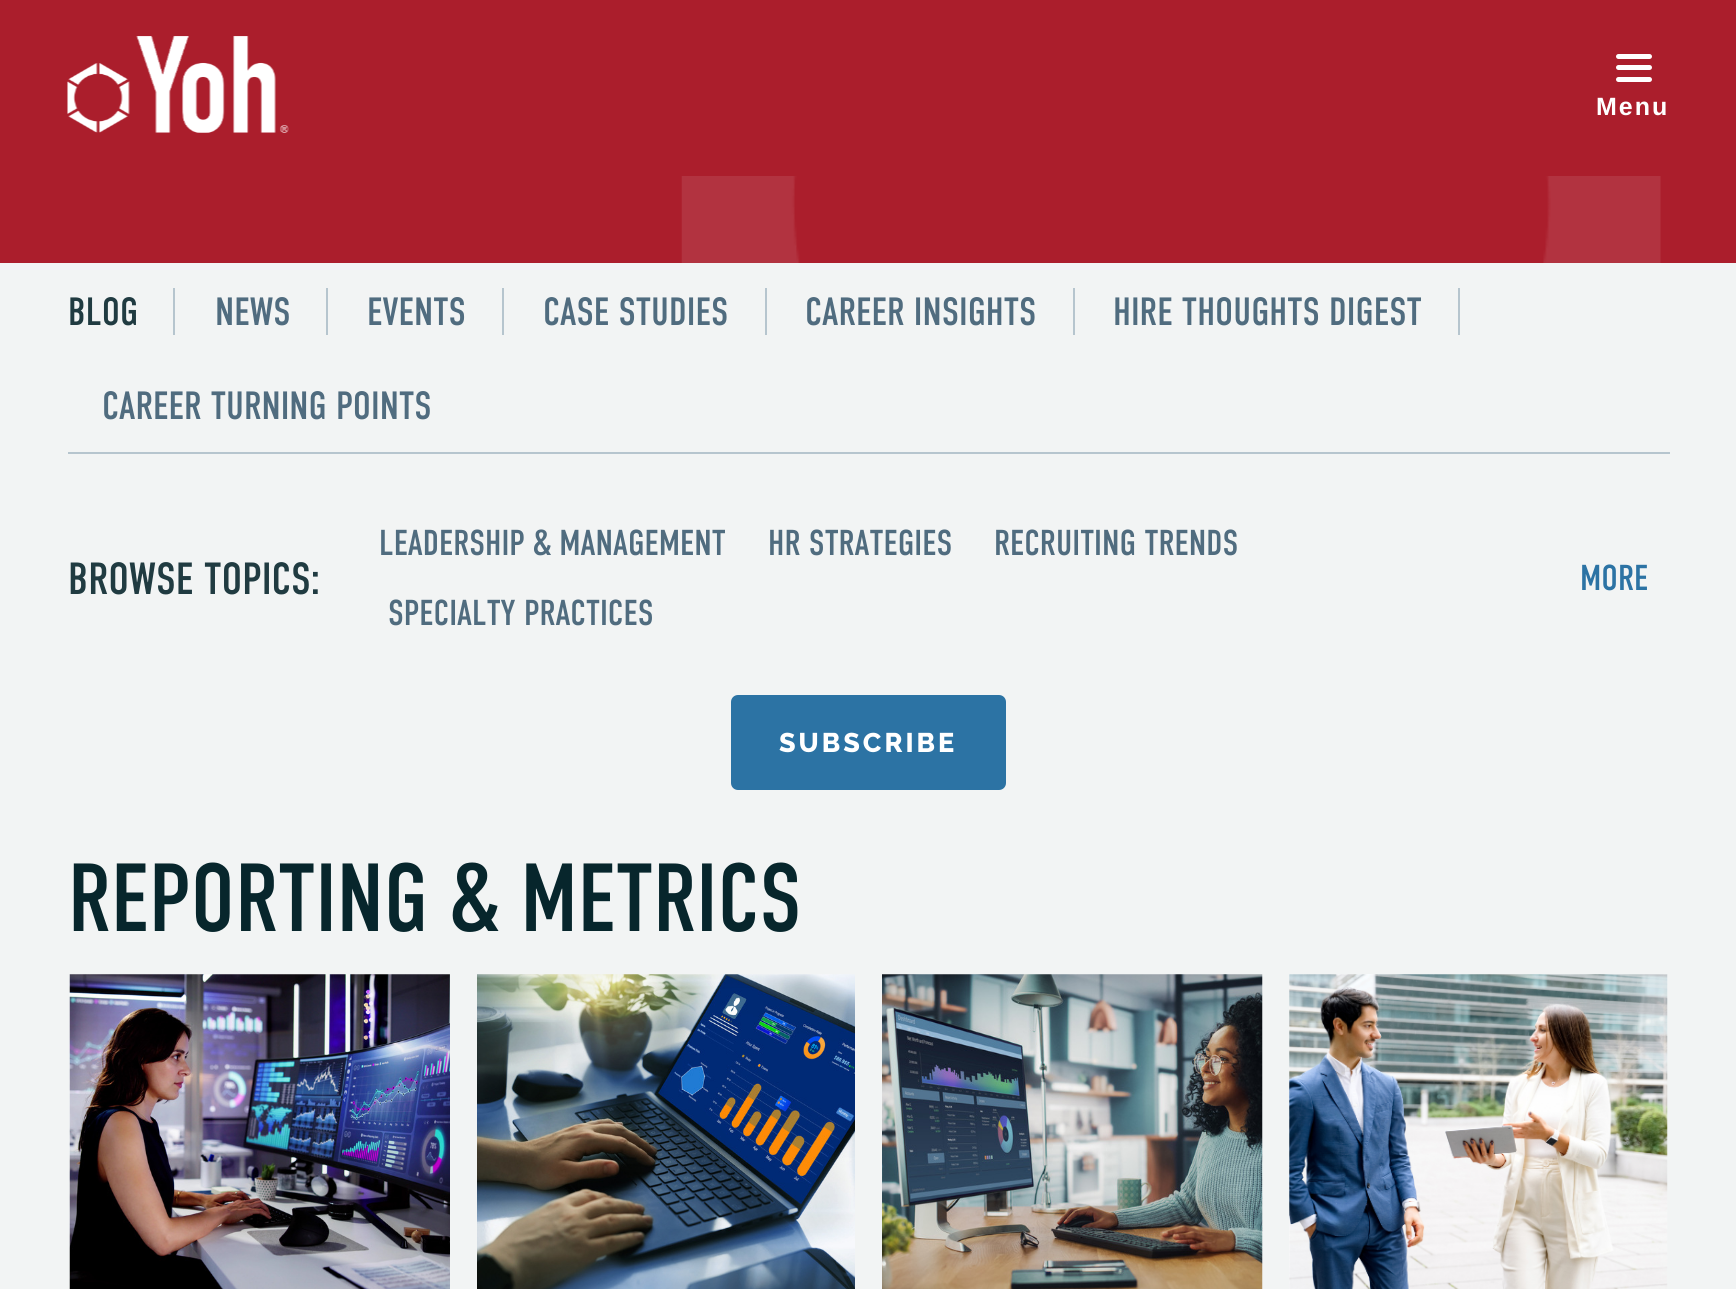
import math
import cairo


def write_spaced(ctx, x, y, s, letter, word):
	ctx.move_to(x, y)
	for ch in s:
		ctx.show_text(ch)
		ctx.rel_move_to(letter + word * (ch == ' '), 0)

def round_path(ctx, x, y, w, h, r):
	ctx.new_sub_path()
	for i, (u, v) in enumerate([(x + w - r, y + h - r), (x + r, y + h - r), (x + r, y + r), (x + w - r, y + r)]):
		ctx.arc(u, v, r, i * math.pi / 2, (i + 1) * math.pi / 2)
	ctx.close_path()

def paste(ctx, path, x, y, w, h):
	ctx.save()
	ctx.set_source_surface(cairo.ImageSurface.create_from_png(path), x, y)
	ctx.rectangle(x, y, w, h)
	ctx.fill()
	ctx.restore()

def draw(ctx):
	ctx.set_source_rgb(0.949, 0.957, 0.957)
	ctx.paint()
	ctx.set_source_rgb(0.671, 0.118, 0.173)
	ctx.rectangle(0, 0, 1736, 263)
	ctx.fill()
	paste(ctx, 'media/1.png', 67, 36, 222, 97)
	ctx.set_source_rgb(1, 1, 1)
	round_path(ctx, 1616, 65, 36, 5, 2.5)
	ctx.fill()
	round_path(ctx, 1616, 54, 36, 5, 2.5)
	ctx.fill()
	round_path(ctx, 1616, 77, 36, 5, 2.5)
	ctx.fill()
	ctx.select_font_face('Liberation Sans', cairo.FONT_SLANT_NORMAL, cairo.FONT_WEIGHT_BOLD)
	ctx.set_font_size(25)
	write_spaced(ctx, 1596, 115, 'Menu', 2, 0)
	paste(ctx, 'media/2.png', 681, 176, 980, 87)
	ctx.select_font_face('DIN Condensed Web')
	ctx.set_font_size(39.4)
	ctx.set_source_rgb(0.125, 0.231, 0.255)
	ctx.move_to(68, 325)
	ctx.show_text('BLOG')
	ctx.set_source_rgb(0.714, 0.773, 0.808)
	ctx.rectangle(173, 288, 2, 47)
	ctx.fill()
	ctx.set_source_rgb(0.314, 0.424, 0.498)
	ctx.move_to(215, 325)
	ctx.show_text('NEWS')
	ctx.set_source_rgb(0.714, 0.773, 0.808)
	ctx.rectangle(326, 288, 2, 47)
	ctx.fill()
	ctx.set_source_rgb(0.314, 0.424, 0.498)
	ctx.move_to(367, 325)
	ctx.show_text('EVENTS')
	ctx.set_source_rgb(0.714, 0.773, 0.808)
	ctx.rectangle(502, 288, 2, 47)
	ctx.fill()
	ctx.set_source_rgb(0.314, 0.424, 0.498)
	ctx.move_to(543, 325)
	ctx.show_text('CASE STUDIES')
	ctx.set_source_rgb(0.714, 0.773, 0.808)
	ctx.rectangle(765, 288, 2, 47)
	ctx.fill()
	ctx.set_source_rgb(0.314, 0.424, 0.498)
	ctx.move_to(805, 325)
	ctx.show_text('CAREER INSIGHTS')
	ctx.set_source_rgb(0.714, 0.773, 0.808)
	ctx.rectangle(1073, 288, 2, 47)
	ctx.fill()
	ctx.set_source_rgb(0.314, 0.424, 0.498)
	ctx.move_to(1113, 325)
	ctx.show_text('HIRE THOUGHTS DIGEST')
	ctx.set_source_rgb(0.714, 0.773, 0.808)
	ctx.rectangle(1458, 288, 2, 47)
	ctx.fill()
	ctx.set_source_rgb(0.314, 0.424, 0.498)
	ctx.move_to(102, 419)
	ctx.show_text('CAREER TURNING POINTS')
	ctx.set_source_rgb(0.714, 0.773, 0.808)
	ctx.rectangle(68, 452, 1602, 2)
	ctx.fill()
	ctx.set_font_size(45)
	ctx.set_source_rgb(0.125, 0.231, 0.255)
	ctx.move_to(68, 594)
	ctx.show_text('BROWSE TOPICS:')
	ctx.set_font_size(36)
	ctx.set_source_rgb(0.314, 0.424, 0.498)
	for x, y, s in [
		(379, 555, 'LEADERSHIP & MANAGEMENT'),
		(768, 555, 'HR STRATEGIES'),
		(994, 555, 'RECRUITING TRENDS'),
		(388, 625, 'SPECIALTY PRACTICES'),
	]:
		ctx.move_to(x, y)
		ctx.show_text(s)
	ctx.set_source_rgb(0.173, 0.451, 0.643)
	ctx.move_to(1580, 590)
	ctx.show_text('MORE')
	round_path(ctx, 732, 696, 273, 93, 6)
	ctx.fill_preserve()
	ctx.stroke()
	ctx.select_font_face('Raleway ExtraBold')
	ctx.set_font_size(27)
	ctx.set_source_rgb(1, 1, 1)
	write_spaced(ctx, 779, 752, 'SUBSCRIBE', 3, 0)
	ctx.select_font_face('DIN Condensed Web')
	ctx.set_font_size(96.5)
	ctx.set_source_rgb(0.031, 0.149, 0.173)
	ctx.move_to(68, 931)
	ctx.show_text('REPORTING & METRICS')
	paste(ctx, 'media/3.png', 69, 974, 381, 315)
	paste(ctx, 'media/4.png', 477, 974, 378, 315)
	paste(ctx, 'media/5.png', 882, 974, 381, 315)
	ctx.set_source_rgb(1, 1, 1)
	ctx.rectangle(1289, 974, 378, 315)
	ctx.fill()
	paste(ctx, 'media/6.png', 1289, 974, 379, 315)


surface = cairo.ImageSurface(cairo.FORMAT_RGB24, 1736, 1289)
ctx = cairo.Context(surface)
options = cairo.FontOptions()
options.set_hint_metrics(cairo.HINT_METRICS_OFF)
options.set_hint_style(cairo.HINT_STYLE_NONE)
ctx.set_font_options(options)
ctx.set_miter_limit(4)
draw(ctx)
surface.write_to_png('image.png')
